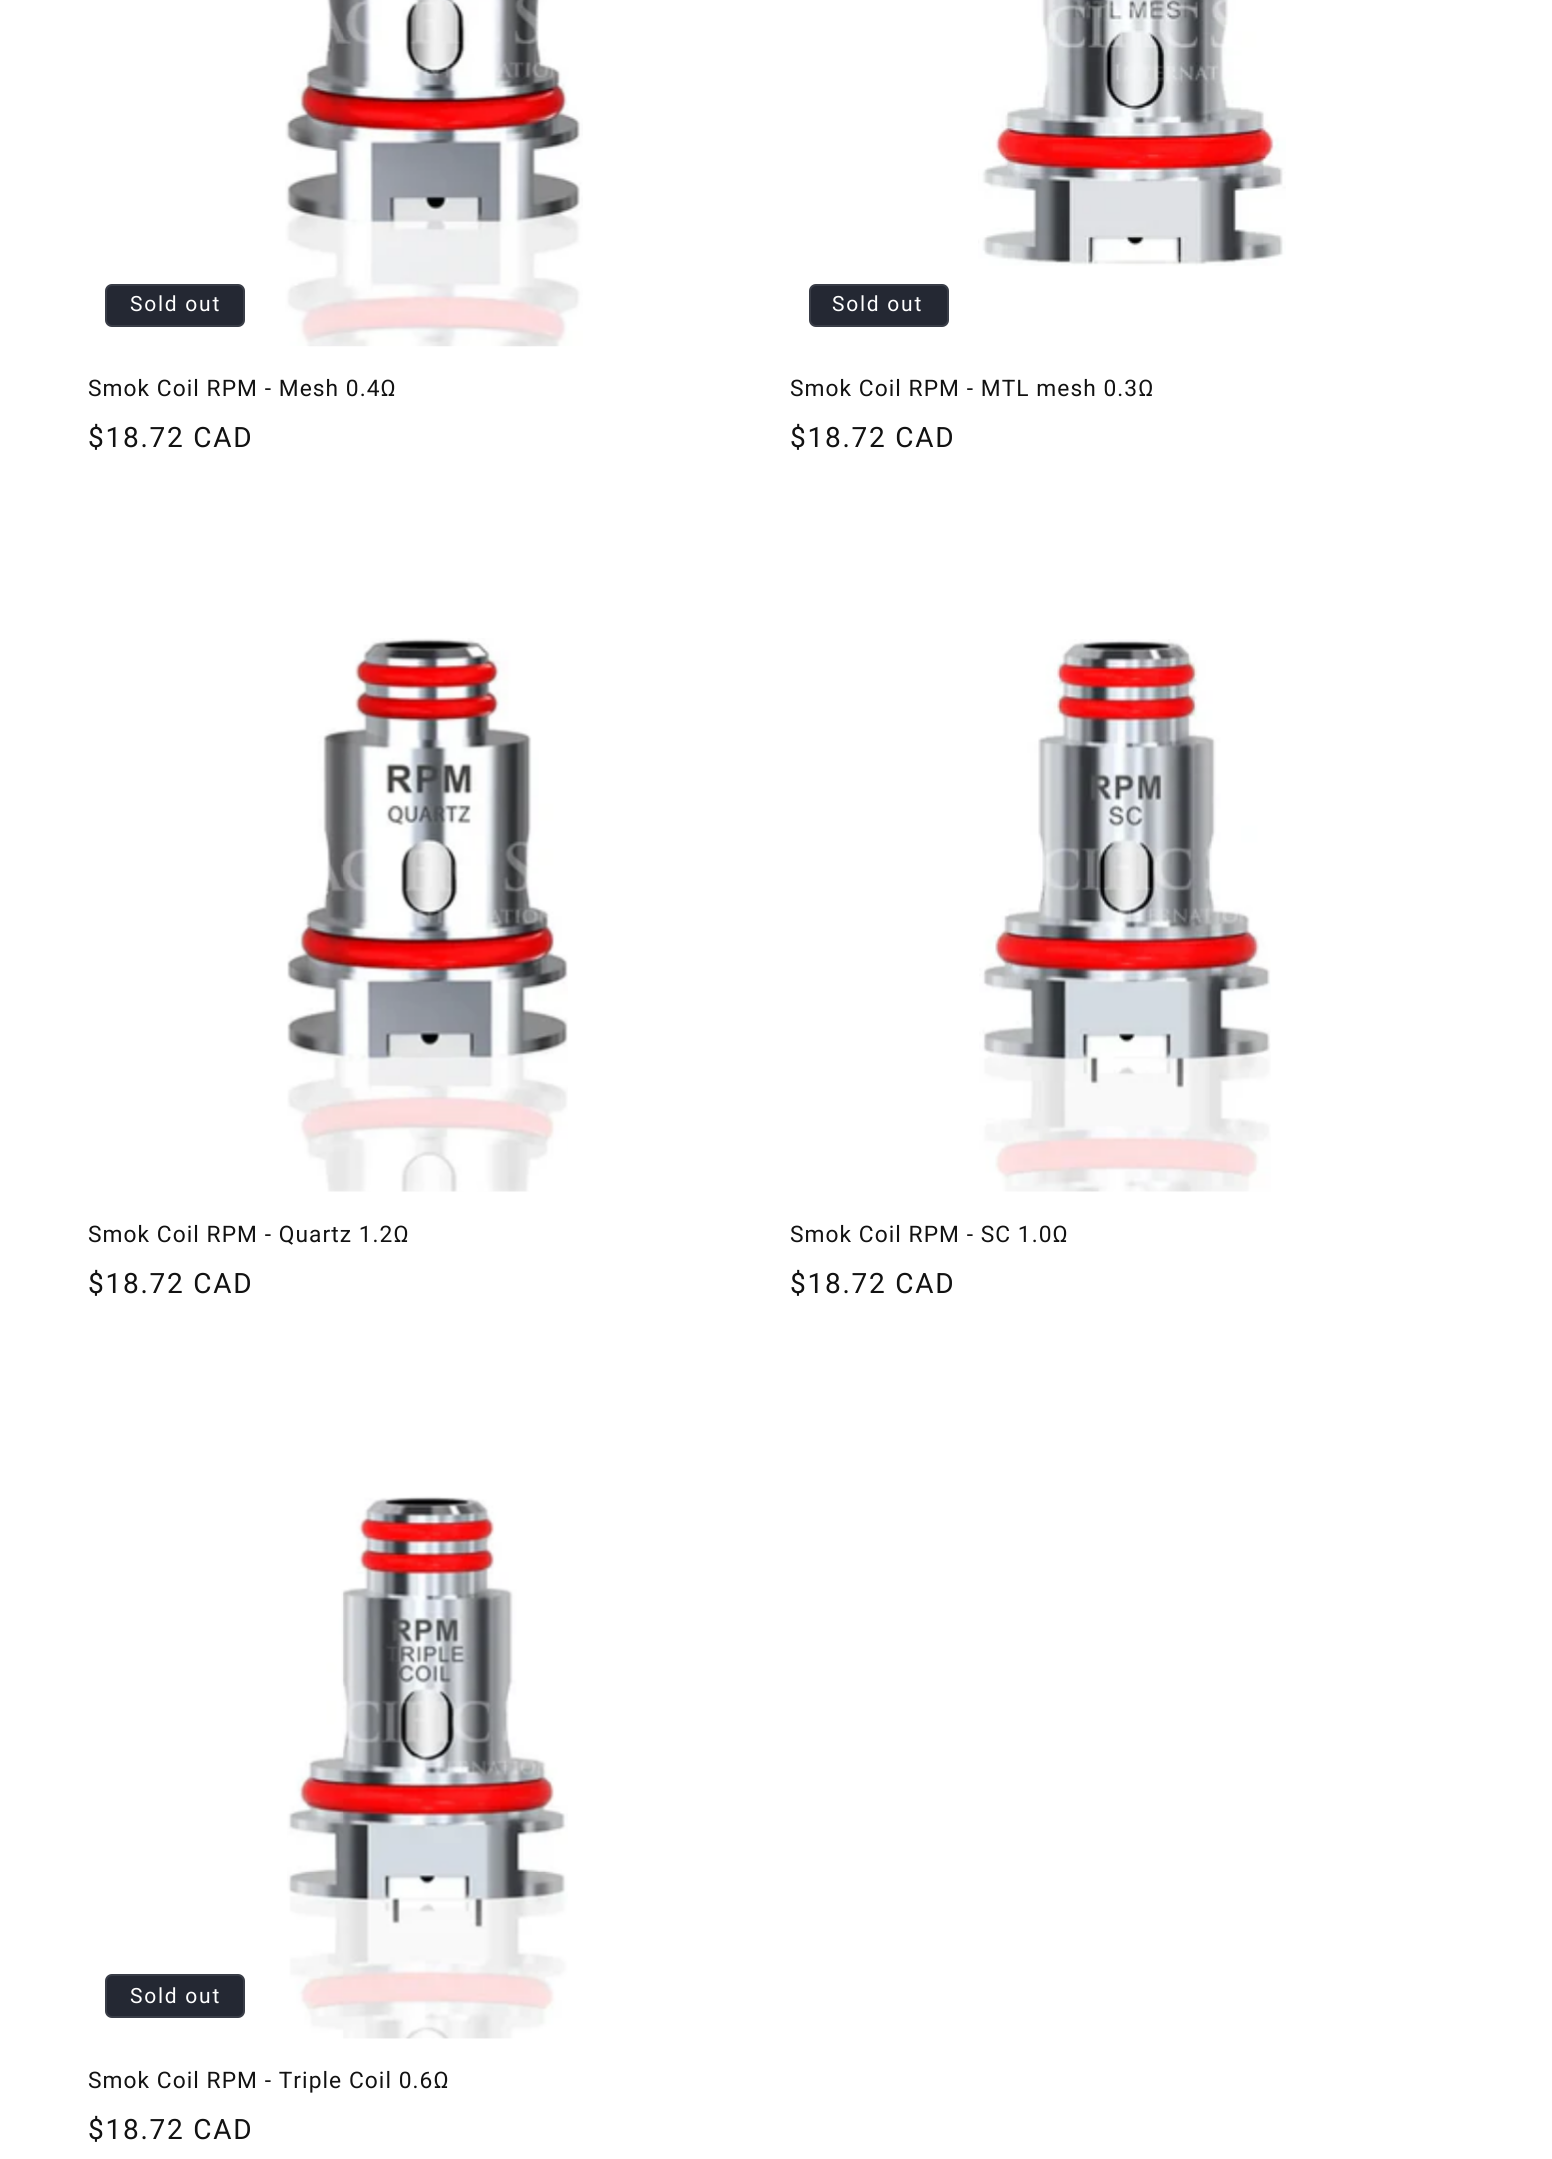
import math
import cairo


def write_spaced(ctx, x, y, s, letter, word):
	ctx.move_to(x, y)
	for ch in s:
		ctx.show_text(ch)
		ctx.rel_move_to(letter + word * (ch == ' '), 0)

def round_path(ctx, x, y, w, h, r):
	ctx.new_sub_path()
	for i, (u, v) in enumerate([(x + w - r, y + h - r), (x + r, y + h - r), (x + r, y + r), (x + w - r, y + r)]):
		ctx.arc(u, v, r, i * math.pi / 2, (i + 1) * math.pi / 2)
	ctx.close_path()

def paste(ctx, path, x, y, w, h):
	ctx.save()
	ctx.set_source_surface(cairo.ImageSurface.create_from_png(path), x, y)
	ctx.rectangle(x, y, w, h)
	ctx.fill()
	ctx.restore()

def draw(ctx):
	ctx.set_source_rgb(1, 1, 1)
	ctx.paint()
	ctx.set_source_rgb(0.141, 0.157, 0.2)
	round_path(ctx, 105, 284, 140, 43, 7)
	ctx.fill()
	round_path(ctx, 106, 285, 138, 41, 6)
	ctx.set_source_rgba(1, 1, 1, 0.1)
	ctx.stroke()
	ctx.select_font_face('Roboto')
	ctx.set_font_size(21)
	ctx.set_source_rgb(1, 1, 1)
	write_spaced(ctx, 130, 311, 'Sold out', 1.75, 0)
	paste(ctx, 'media/1.png', 285, 0, 298, 347)
	ctx.set_font_size(22.75)
	ctx.set_source_rgb(0.071, 0.071, 0.071)
	write_spaced(ctx, 88, 396, 'Smok Coil RPM - Mesh 0.4Ω', 1.05, 0)
	ctx.set_font_size(28)
	write_spaced(ctx, 88, 447, '$18.72 CAD', 1.75, 0)
	paste(ctx, 'media/2.png', 978, 0, 308, 266)
	ctx.set_source_rgb(0.141, 0.157, 0.2)
	round_path(ctx, 809, 284, 140, 43, 7)
	ctx.fill()
	round_path(ctx, 810, 285, 138, 41, 6)
	ctx.set_source_rgba(1, 1, 1, 0.1)
	ctx.stroke()
	ctx.set_font_size(21)
	ctx.set_source_rgb(1, 1, 1)
	write_spaced(ctx, 832, 311, 'Sold out', 1.75, 0)
	ctx.set_font_size(22.75)
	ctx.set_source_rgb(0.071, 0.071, 0.071)
	write_spaced(ctx, 790, 396, 'Smok Coil RPM - MTL mesh 0.3Ω', 1.05, 0)
	ctx.set_font_size(28)
	write_spaced(ctx, 790, 447, '$18.72 CAD', 1.75, 0)
	paste(ctx, 'media/3.png', 287, 638, 281, 554)
	ctx.set_font_size(22.75)
	write_spaced(ctx, 88, 1242, 'Smok Coil RPM - Quartz 1.2Ω', 1.05, 0)
	ctx.set_font_size(28)
	write_spaced(ctx, 88, 1293, '$18.72 CAD', 1.75, 0)
	paste(ctx, 'media/4.png', 979, 639, 292, 553)
	ctx.set_font_size(22.75)
	write_spaced(ctx, 790, 1242, 'Smok Coil RPM - SC 1.0Ω', 1.05, 0)
	ctx.set_font_size(28)
	write_spaced(ctx, 790, 1293, '$18.72 CAD', 1.75, 0)
	ctx.set_source_rgb(0.141, 0.157, 0.2)
	round_path(ctx, 105, 1974, 140, 44, 7)
	ctx.fill()
	round_path(ctx, 106, 1975, 138, 42, 6)
	ctx.set_source_rgba(1, 1, 1, 0.1)
	ctx.stroke()
	ctx.set_font_size(21)
	ctx.set_source_rgb(1, 1, 1)
	write_spaced(ctx, 130, 2003, 'Sold out', 1.75, 0)
	paste(ctx, 'media/5.png', 287, 1496, 281, 543)
	ctx.set_font_size(22.75)
	ctx.set_source_rgb(0.071, 0.071, 0.071)
	write_spaced(ctx, 88, 2088, 'Smok Coil RPM - Triple Coil 0.6Ω', 1.05, 0)
	ctx.set_font_size(28)
	write_spaced(ctx, 88, 2139, '$18.72 CAD', 1.75, 0)


surface = cairo.ImageSurface(cairo.FORMAT_RGB24, 1552, 2159)
ctx = cairo.Context(surface)
options = cairo.FontOptions()
options.set_hint_metrics(cairo.HINT_METRICS_OFF)
options.set_hint_style(cairo.HINT_STYLE_NONE)
ctx.set_font_options(options)
ctx.set_miter_limit(4)
draw(ctx)
surface.write_to_png('image.png')
